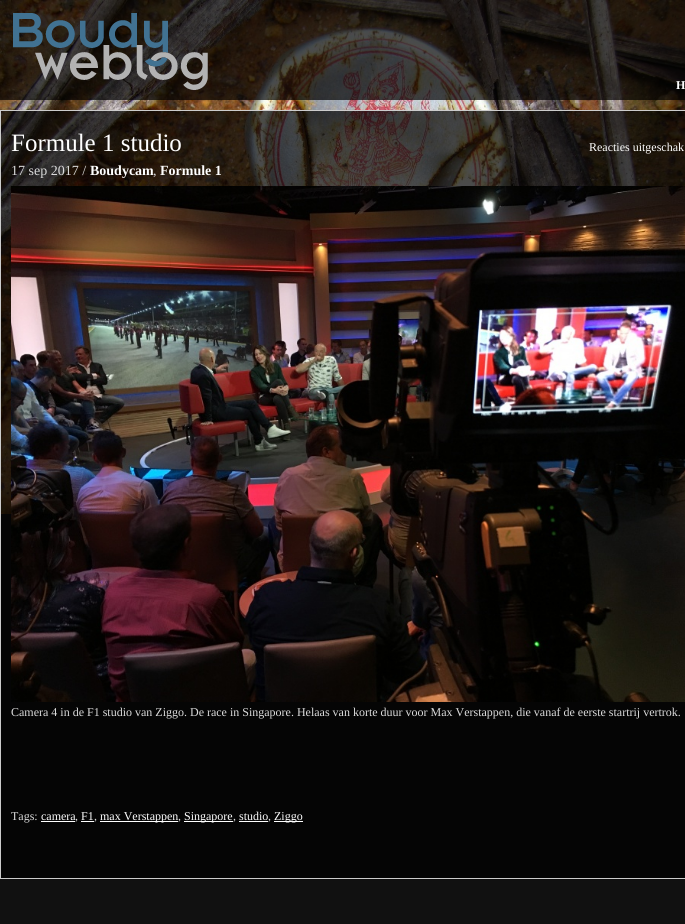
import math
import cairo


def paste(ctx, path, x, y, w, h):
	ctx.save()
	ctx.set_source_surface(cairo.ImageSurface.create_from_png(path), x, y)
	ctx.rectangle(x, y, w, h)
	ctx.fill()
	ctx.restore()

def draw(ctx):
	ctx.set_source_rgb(0.067, 0.067, 0.067)
	ctx.paint()
	paste(ctx, 'media/2.png', 0, 0, 685, 514)
	paste(ctx, 'media/1.png', 0, 0, 685, 100)
	ctx.select_font_face('Liberation Serif', cairo.FONT_SLANT_NORMAL, cairo.FONT_WEIGHT_BOLD)
	ctx.set_font_size(12)
	ctx.set_source_rgb(1, 1, 1)
	ctx.move_to(676, 89)
	ctx.show_text('H')
	ctx.set_source_rgba(0, 0, 0, 0.7)
	ctx.rectangle(0.5, 110.5, 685, 768)
	ctx.fill_preserve()
	ctx.set_source_rgb(0.8, 0.8, 0.8)
	ctx.set_line_width(1)
	ctx.stroke()
	ctx.select_font_face('Liberation Serif')
	ctx.set_font_size(25)
	ctx.set_source_rgb(1, 1, 1)
	ctx.move_to(11, 151)
	ctx.show_text('Formule 1 studio')
	ctx.set_font_size(12)
	ctx.move_to(589, 151)
	ctx.show_text('Reacties uitgeschak')
	ctx.set_font_size(14)
	ctx.set_source_rgb(0.859, 0.859, 0.859)
	ctx.move_to(11, 175)
	ctx.show_text('17 sep 2017 /')
	ctx.select_font_face('Liberation Serif', cairo.FONT_SLANT_NORMAL, cairo.FONT_WEIGHT_BOLD)
	ctx.set_source_rgb(1, 1, 1)
	ctx.move_to(90, 175)
	ctx.show_text('Boudycam')
	ctx.select_font_face('Liberation Serif')
	ctx.set_source_rgb(0.859, 0.859, 0.859)
	ctx.move_to(153, 175)
	ctx.show_text(',')
	ctx.select_font_face('Liberation Serif', cairo.FONT_SLANT_NORMAL, cairo.FONT_WEIGHT_BOLD)
	ctx.set_source_rgb(1, 1, 1)
	ctx.move_to(160, 175)
	ctx.show_text('Formule 1')
	paste(ctx, 'media/3.png', 11, 186, 674, 516)
	ctx.select_font_face('Liberation Serif')
	ctx.set_font_size(12)
	ctx.set_source_rgb(0.859, 0.859, 0.859)
	ctx.move_to(11, 716)
	ctx.show_text('Camera 4 in de F1 studio van Ziggo. De race in Singapore. Helaas van korte duur voor Max Verstappen, die vanaf de eerste startrij vertrok.')
	ctx.move_to(11, 820)
	ctx.show_text('Tags:')
	ctx.set_source_rgb(1, 1, 1)
	ctx.move_to(41, 820)
	ctx.show_text('camera')
	ctx.rectangle(41, 821, 34, 1)
	ctx.fill()
	ctx.set_source_rgb(0.859, 0.859, 0.859)
	ctx.move_to(75, 820)
	ctx.show_text(',')
	ctx.set_source_rgb(1, 1, 1)
	ctx.move_to(81, 820)
	ctx.show_text('F1')
	ctx.rectangle(81, 821, 13, 1)
	ctx.fill()
	ctx.set_source_rgb(0.859, 0.859, 0.859)
	ctx.move_to(94, 820)
	ctx.show_text(',')
	ctx.set_source_rgb(1, 1, 1)
	ctx.rectangle(100, 821, 78, 1)
	ctx.fill()
	ctx.move_to(100, 820)
	ctx.show_text('max Verstappen')
	ctx.set_source_rgb(0.859, 0.859, 0.859)
	ctx.move_to(178, 820)
	ctx.show_text(',')
	ctx.set_source_rgb(1, 1, 1)
	ctx.rectangle(184, 821, 49, 1)
	ctx.fill()
	ctx.move_to(184, 820)
	ctx.show_text('Singapore')
	ctx.set_source_rgb(0.859, 0.859, 0.859)
	ctx.move_to(233, 820)
	ctx.show_text(',')
	ctx.set_source_rgb(1, 1, 1)
	ctx.move_to(239, 820)
	ctx.show_text('studio')
	ctx.rectangle(239, 821, 29, 1)
	ctx.fill()
	ctx.set_source_rgb(0.859, 0.859, 0.859)
	ctx.move_to(268, 820)
	ctx.show_text(',')
	ctx.set_source_rgb(1, 1, 1)
	ctx.rectangle(274, 821, 29, 1)
	ctx.fill()
	ctx.move_to(274, 820)
	ctx.show_text('Ziggo')


surface = cairo.ImageSurface(cairo.FORMAT_RGB24, 685, 924)
ctx = cairo.Context(surface)
options = cairo.FontOptions()
options.set_hint_metrics(cairo.HINT_METRICS_OFF)
options.set_hint_style(cairo.HINT_STYLE_NONE)
ctx.set_font_options(options)
ctx.set_miter_limit(4)
draw(ctx)
surface.write_to_png('image.png')
